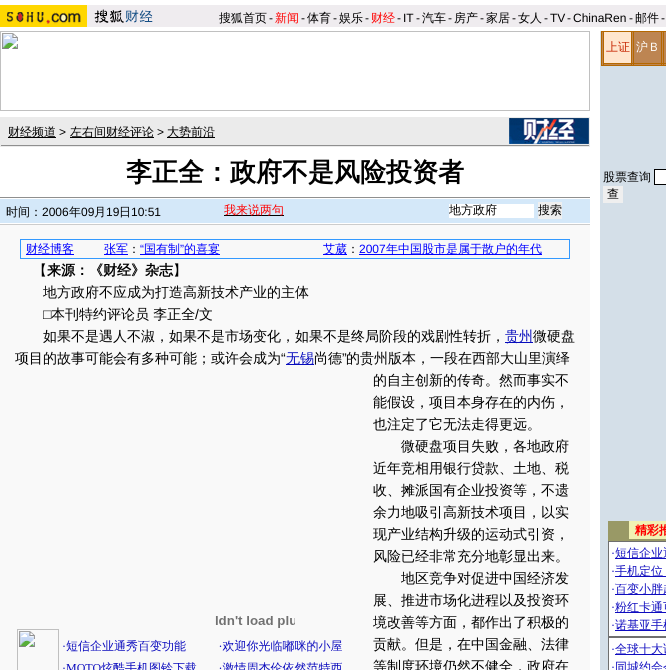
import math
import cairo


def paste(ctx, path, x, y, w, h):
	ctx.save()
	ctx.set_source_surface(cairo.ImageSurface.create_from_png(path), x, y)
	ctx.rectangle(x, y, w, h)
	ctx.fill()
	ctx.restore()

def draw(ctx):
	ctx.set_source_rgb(1, 1, 1)
	ctx.paint()
	ctx.set_source_rgb(0.937, 0.922, 0.937)
	ctx.rectangle(87, 5, 579, 22)
	ctx.fill()
	paste(ctx, 'media/1.png', 0, 5, 87, 22)
	paste(ctx, 'media/2.png', 94, 9, 59, 14)
	ctx.select_font_face('WenQuanYi Zen Hei Medium')
	ctx.set_font_size(12)
	ctx.set_source_rgb(0, 0, 0)
	ctx.move_to(219, 22)
	ctx.show_text('搜狐首页')
	ctx.select_font_face('Liberation Sans')
	ctx.move_to(269, 22)
	ctx.show_text('-')
	ctx.select_font_face('WenQuanYi Zen Hei Medium')
	ctx.set_source_rgb(1, 0, 0)
	ctx.move_to(275, 22)
	ctx.show_text('新闻')
	ctx.select_font_face('Liberation Sans')
	ctx.set_source_rgb(0, 0, 0)
	ctx.move_to(301, 22)
	ctx.show_text('-')
	ctx.select_font_face('WenQuanYi Zen Hei Medium')
	ctx.move_to(307, 22)
	ctx.show_text('体育')
	ctx.select_font_face('Liberation Sans')
	ctx.move_to(333, 22)
	ctx.show_text('-')
	ctx.select_font_face('WenQuanYi Zen Hei Medium')
	ctx.move_to(339, 22)
	ctx.show_text('娱乐')
	ctx.select_font_face('Liberation Sans')
	ctx.move_to(365, 22)
	ctx.show_text('-')
	ctx.select_font_face('WenQuanYi Zen Hei Medium')
	ctx.set_source_rgb(1, 0, 0)
	ctx.move_to(371, 22)
	ctx.show_text('财经')
	ctx.select_font_face('Liberation Sans')
	ctx.set_source_rgb(0, 0, 0)
	for x, y, s in [
		(397, 22, '-'),
		(403, 22, 'IT'),
		(416, 22, '-'),
	]:
		ctx.move_to(x, y)
		ctx.show_text(s)
	ctx.select_font_face('WenQuanYi Zen Hei Medium')
	ctx.move_to(422, 22)
	ctx.show_text('汽车')
	ctx.select_font_face('Liberation Sans')
	ctx.move_to(448, 22)
	ctx.show_text('-')
	ctx.select_font_face('WenQuanYi Zen Hei Medium')
	ctx.move_to(454, 22)
	ctx.show_text('房产')
	ctx.select_font_face('Liberation Sans')
	ctx.move_to(480, 22)
	ctx.show_text('-')
	ctx.select_font_face('WenQuanYi Zen Hei Medium')
	ctx.move_to(486, 22)
	ctx.show_text('家居')
	ctx.select_font_face('Liberation Sans')
	ctx.move_to(512, 22)
	ctx.show_text('-')
	ctx.select_font_face('WenQuanYi Zen Hei Medium')
	ctx.move_to(518, 22)
	ctx.show_text('女人')
	ctx.select_font_face('Liberation Sans')
	for x, y, s in [
		(544, 22, '-'),
		(550, 22, 'TV'),
		(567, 22, '-'),
		(573, 22, 'ChinaRen'),
		(629, 22, '-'),
	]:
		ctx.move_to(x, y)
		ctx.show_text(s)
	ctx.select_font_face('WenQuanYi Zen Hei Medium')
	ctx.move_to(635, 22)
	ctx.show_text('邮件')
	ctx.select_font_face('Liberation Sans')
	ctx.move_to(661, 22)
	ctx.show_text('-')
	paste(ctx, 'media/3.png', 0, 31, 590, 80)
	ctx.set_source_rgb(0.918, 0.918, 0.918)
	ctx.rectangle(0, 117, 590, 30)
	ctx.fill()
	ctx.set_source_rgb(0, 0, 0)
	ctx.rectangle(8, 137, 48, 1)
	ctx.fill()
	ctx.select_font_face('WenQuanYi Zen Hei Medium')
	ctx.move_to(8, 136)
	ctx.show_text('财经频道')
	ctx.select_font_face('Liberation Sans')
	ctx.move_to(59, 136)
	ctx.show_text('>')
	ctx.rectangle(70, 137, 84, 1)
	ctx.fill()
	ctx.select_font_face('WenQuanYi Zen Hei Medium')
	ctx.move_to(70, 136)
	ctx.show_text('左右间财经评论')
	ctx.select_font_face('Liberation Sans')
	ctx.move_to(157, 136)
	ctx.show_text('>')
	ctx.rectangle(167, 137, 48, 1)
	ctx.fill()
	ctx.select_font_face('WenQuanYi Zen Hei Medium')
	ctx.move_to(167, 136)
	ctx.show_text('大势前沿')
	paste(ctx, 'media/4.png', 509, 118, 80, 26)
	ctx.set_source_rgb(0.561, 0.561, 0.561)
	ctx.rectangle(1, 145, 588, 1)
	ctx.fill()
	ctx.select_font_face('WenQuanYi Zen Hei', cairo.FONT_SLANT_NORMAL, cairo.FONT_WEIGHT_BOLD)
	ctx.set_font_size(26)
	ctx.set_source_rgb(0, 0, 0)
	ctx.move_to(126, 181)
	ctx.show_text('李正全：政府不是风险投资者')
	ctx.set_source_rgb(0.561, 0.561, 0.561)
	ctx.rectangle(0, 197, 590, 1)
	ctx.fill()
	ctx.set_source_rgb(0.831, 0.91, 0.976)
	ctx.rectangle(0, 199, 590, 24)
	ctx.fill()
	ctx.select_font_face('WenQuanYi Zen Hei Medium')
	ctx.set_font_size(12)
	ctx.set_source_rgb(0, 0, 0)
	ctx.move_to(6, 216)
	ctx.show_text('时间：')
	ctx.select_font_face('Liberation Sans')
	ctx.move_to(42, 216)
	ctx.show_text('2006')
	ctx.select_font_face('WenQuanYi Zen Hei Medium')
	ctx.move_to(69, 216)
	ctx.show_text('年')
	ctx.select_font_face('Liberation Sans')
	ctx.move_to(81, 216)
	ctx.show_text('09')
	ctx.select_font_face('WenQuanYi Zen Hei Medium')
	ctx.move_to(94, 216)
	ctx.show_text('月')
	ctx.select_font_face('Liberation Sans')
	ctx.move_to(106, 216)
	ctx.show_text('19')
	ctx.select_font_face('WenQuanYi Zen Hei Medium')
	ctx.move_to(119, 216)
	ctx.show_text('日')
	ctx.select_font_face('Liberation Sans')
	ctx.move_to(131, 216)
	ctx.show_text('10:51')
	ctx.rectangle(224, 215, 60, 1)
	ctx.fill()
	ctx.select_font_face('WenQuanYi Zen Hei Medium')
	ctx.set_source_rgb(1, 0, 0)
	ctx.move_to(224, 214)
	ctx.show_text('我来说两句')
	ctx.set_source_rgb(1, 1, 1)
	ctx.rectangle(449, 204, 85, 14)
	ctx.fill()
	ctx.set_source_rgb(0, 0, 0)
	ctx.move_to(449, 214)
	ctx.show_text('地方政府')
	ctx.set_source_rgb(0.937, 0.937, 0.937)
	ctx.rectangle(538, 202, 24, 17)
	ctx.fill()
	ctx.set_source_rgb(0, 0, 0)
	ctx.move_to(538, 214)
	ctx.show_text('搜索')
	ctx.set_source_rgb(0.973, 0.973, 0.973)
	ctx.rectangle(0, 225, 590, 445)
	ctx.fill()
	ctx.set_source_rgb(0.8, 0.8, 0.8)
	ctx.rectangle(0, 224, 590, 1)
	ctx.fill()
	ctx.set_source_rgb(0.2, 0.6, 1)
	ctx.rectangle(20, 239, 550, 20)
	ctx.fill()
	ctx.set_source_rgb(0.969, 0.969, 0.969)
	ctx.rectangle(21, 240, 548, 18)
	ctx.fill()
	ctx.set_source_rgb(0, 0, 1)
	ctx.rectangle(26, 254, 48, 1)
	ctx.fill()
	ctx.move_to(26, 253)
	ctx.show_text('财经博客')
	ctx.rectangle(104, 254, 24, 1)
	ctx.fill()
	ctx.move_to(104, 253)
	ctx.show_text('张军')
	ctx.set_source_rgb(0, 0, 0)
	ctx.move_to(128, 253)
	ctx.show_text('：')
	ctx.select_font_face('Liberation Sans')
	ctx.set_source_rgb(0, 0, 1)
	ctx.move_to(140, 253)
	ctx.show_text('“')
	ctx.rectangle(140, 254, 80, 1)
	ctx.fill()
	ctx.select_font_face('WenQuanYi Zen Hei Medium')
	ctx.move_to(144, 253)
	ctx.show_text('国有制')
	ctx.select_font_face('Liberation Sans')
	ctx.move_to(180, 253)
	ctx.show_text('”')
	ctx.select_font_face('WenQuanYi Zen Hei Medium')
	ctx.move_to(184, 253)
	ctx.show_text('的喜宴')
	ctx.rectangle(323, 254, 24, 1)
	ctx.fill()
	ctx.move_to(323, 253)
	ctx.show_text('艾葳')
	ctx.set_source_rgb(0, 0, 0)
	ctx.move_to(347, 253)
	ctx.show_text('：')
	ctx.select_font_face('Liberation Sans')
	ctx.set_source_rgb(0, 0, 1)
	ctx.move_to(359, 253)
	ctx.show_text('2007')
	ctx.rectangle(359, 254, 183, 1)
	ctx.fill()
	ctx.select_font_face('WenQuanYi Zen Hei Medium')
	ctx.move_to(386, 253)
	ctx.show_text('年中国股市是属于散户的年代')
	ctx.set_font_size(14)
	ctx.set_source_rgb(0, 0, 0)
	ctx.move_to(33, 275)
	ctx.show_text('【')
	ctx.select_font_face('WenQuanYi Zen Hei', cairo.FONT_SLANT_NORMAL, cairo.FONT_WEIGHT_BOLD)
	ctx.move_to(47, 275)
	ctx.show_text('来源：《财经》杂志')
	ctx.select_font_face('WenQuanYi Zen Hei Medium')
	ctx.move_to(173, 275)
	ctx.show_text('】')
	ctx.move_to(43, 297)
	ctx.show_text('地方政府不应成为打造高新技术产业的主体')
	ctx.select_font_face('Liberation Sans')
	ctx.move_to(43, 319)
	ctx.show_text('□')
	ctx.select_font_face('WenQuanYi Zen Hei Medium')
	ctx.move_to(51, 319)
	ctx.show_text('本刊特约评论员 李正全')
	ctx.select_font_face('Liberation Sans')
	ctx.move_to(195, 319)
	ctx.show_text('/')
	ctx.select_font_face('WenQuanYi Zen Hei Medium')
	ctx.move_to(199, 319)
	ctx.show_text('文')
	ctx.move_to(43, 341)
	ctx.show_text('如果不是遇人不淑，如果不是市场变化，如果不是终局阶段的戏剧性转折，')
	ctx.set_source_rgb(0.031, 0.047, 0.741)
	ctx.rectangle(505, 342, 28, 1)
	ctx.fill()
	ctx.move_to(505, 341)
	ctx.show_text('贵州')
	ctx.set_source_rgb(0, 0, 0)
	ctx.move_to(533, 341)
	ctx.show_text('微硬盘')
	ctx.move_to(15, 363)
	ctx.show_text('项目的故事可能会有多种可能；或许会成为')
	ctx.select_font_face('Liberation Sans')
	ctx.move_to(281, 363)
	ctx.show_text('“')
	ctx.set_source_rgb(0.031, 0.047, 0.741)
	ctx.rectangle(286, 364, 28, 1)
	ctx.fill()
	ctx.select_font_face('WenQuanYi Zen Hei Medium')
	ctx.move_to(286, 363)
	ctx.show_text('无锡')
	ctx.set_source_rgb(0, 0, 0)
	ctx.move_to(314, 363)
	ctx.show_text('尚德')
	ctx.select_font_face('Liberation Sans')
	ctx.move_to(342, 363)
	ctx.show_text('”')
	ctx.select_font_face('WenQuanYi Zen Hei Medium')
	for x, y, s in [
		(346, 363, '的贵州版本，一段在西部大山里演绎'),
		(373, 385, '的自主创新的传奇。然而事实不'),
		(373, 407, '能假设，项目本身存在的内伤，'),
		(373, 429, '也注定了它无法走得更远。'),
	]:
		ctx.move_to(x, y)
		ctx.show_text(s)
	paste(ctx, 'media/5.png', 17, 629, 325, 41)
	for x, y, s in [
		(401, 451, '微硬盘项目失败，各地政府'),
		(373, 473, '近年竞相用银行贷款、土地、税'),
		(373, 495, '收、摊派国有企业投资等，不遗'),
		(373, 517, '余力地吸引高新技术项目，以实'),
		(373, 539, '现产业结构升级的运动式引资，'),
		(373, 561, '风险已经非常充分地彰显出来。'),
		(401, 583, '地区竞争对促进中国经济发'),
		(373, 605, '展、推进市场化进程以及投资环'),
		(373, 627, '境改善等方面，都作出了积极的'),
		(373, 649, '贡献。但是，在中国金融、法律'),
		(373, 671, '等制度环境仍然不健全，政府在'),
	]:
		ctx.move_to(x, y)
		ctx.show_text(s)
	ctx.set_source_rgb(0.831, 0.875, 0.91)
	ctx.rectangle(600, 31, 66, 639)
	ctx.fill()
	ctx.set_source_rgb(0.71, 0.408, 0)
	ctx.rectangle(601, 31, 65, 35)
	ctx.fill()
	ctx.set_source_rgb(0.741, 0.522, 0.322)
	ctx.rectangle(602, 32, 1, 33)
	ctx.fill()
	ctx.set_source_rgb(1, 0.902, 0.808)
	ctx.rectangle(604, 32, 27, 31)
	ctx.fill()
	ctx.set_font_size(12)
	ctx.set_source_rgb(0.776, 0.141, 0)
	ctx.move_to(606, 51)
	ctx.show_text('上证')
	ctx.set_source_rgb(0.741, 0.522, 0.322)
	ctx.rectangle(632, 32, 1, 31)
	ctx.fill()
	ctx.rectangle(634, 32, 27, 31)
	ctx.fill()
	ctx.set_source_rgb(1, 1, 1)
	ctx.move_to(636, 51)
	ctx.show_text('沪Ｂ')
	ctx.set_source_rgb(0.741, 0.522, 0.322)
	ctx.rectangle(662, 32, 1, 31)
	ctx.rectangle(664, 32, 2, 31)
	ctx.rectangle(604, 64, 27, 1)
	ctx.rectangle(632, 64, 1, 1)
	ctx.rectangle(634, 64, 27, 1)
	ctx.rectangle(662, 64, 1, 1)
	ctx.rectangle(664, 64, 2, 1)
	ctx.fill()
	ctx.set_source_rgb(0, 0, 0)
	ctx.move_to(603, 181)
	ctx.show_text('股票查询')
	ctx.set_source_rgb(1, 1, 1)
	ctx.rectangle(654.5, 169.5, 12, 15)
	ctx.fill_preserve()
	ctx.set_source_rgb(0, 0, 0)
	ctx.set_line_width(1)
	ctx.stroke()
	ctx.set_source_rgb(0.937, 0.937, 0.937)
	ctx.rectangle(603, 186, 20, 17)
	ctx.fill()
	ctx.set_source_rgb(0, 0, 0)
	ctx.move_to(607, 198)
	ctx.show_text('查')
	paste(ctx, 'media/6.png', 608, 521, 58, 149)
	paste(ctx, 'media/7.png', 215, 616, 80, 12)


surface = cairo.ImageSurface(cairo.FORMAT_RGB24, 666, 670)
ctx = cairo.Context(surface)
options = cairo.FontOptions()
options.set_hint_metrics(cairo.HINT_METRICS_OFF)
options.set_hint_style(cairo.HINT_STYLE_NONE)
ctx.set_font_options(options)
ctx.set_miter_limit(4)
draw(ctx)
surface.write_to_png('image.png')
